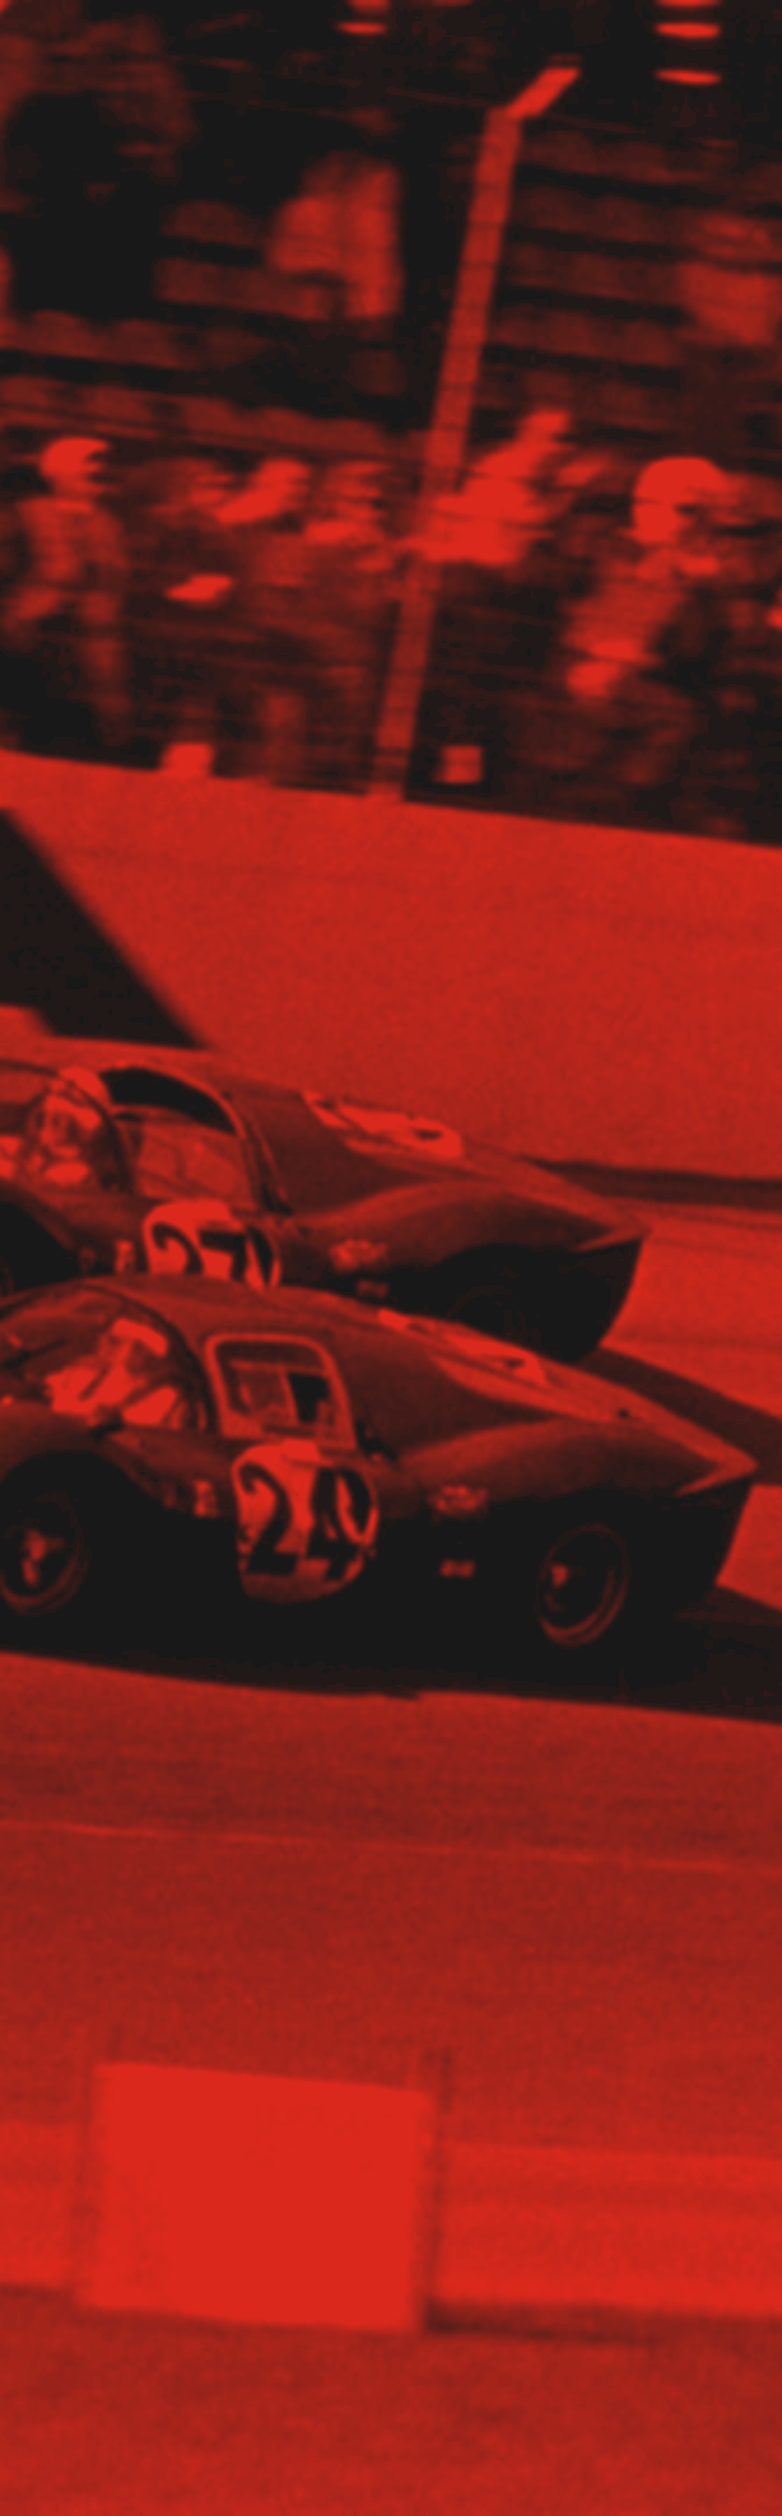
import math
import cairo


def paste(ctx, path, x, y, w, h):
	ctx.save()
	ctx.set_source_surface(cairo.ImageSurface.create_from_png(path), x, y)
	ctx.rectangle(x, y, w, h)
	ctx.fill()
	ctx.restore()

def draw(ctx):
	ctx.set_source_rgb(1, 1, 1)
	ctx.paint()
	paste(ctx, 'media/1.png', 0, 0, 782, 2516)


surface = cairo.ImageSurface(cairo.FORMAT_RGB24, 782, 2516)
ctx = cairo.Context(surface)
options = cairo.FontOptions()
options.set_hint_metrics(cairo.HINT_METRICS_OFF)
options.set_hint_style(cairo.HINT_STYLE_NONE)
ctx.set_font_options(options)
ctx.set_miter_limit(4)
draw(ctx)
surface.write_to_png('image.png')
